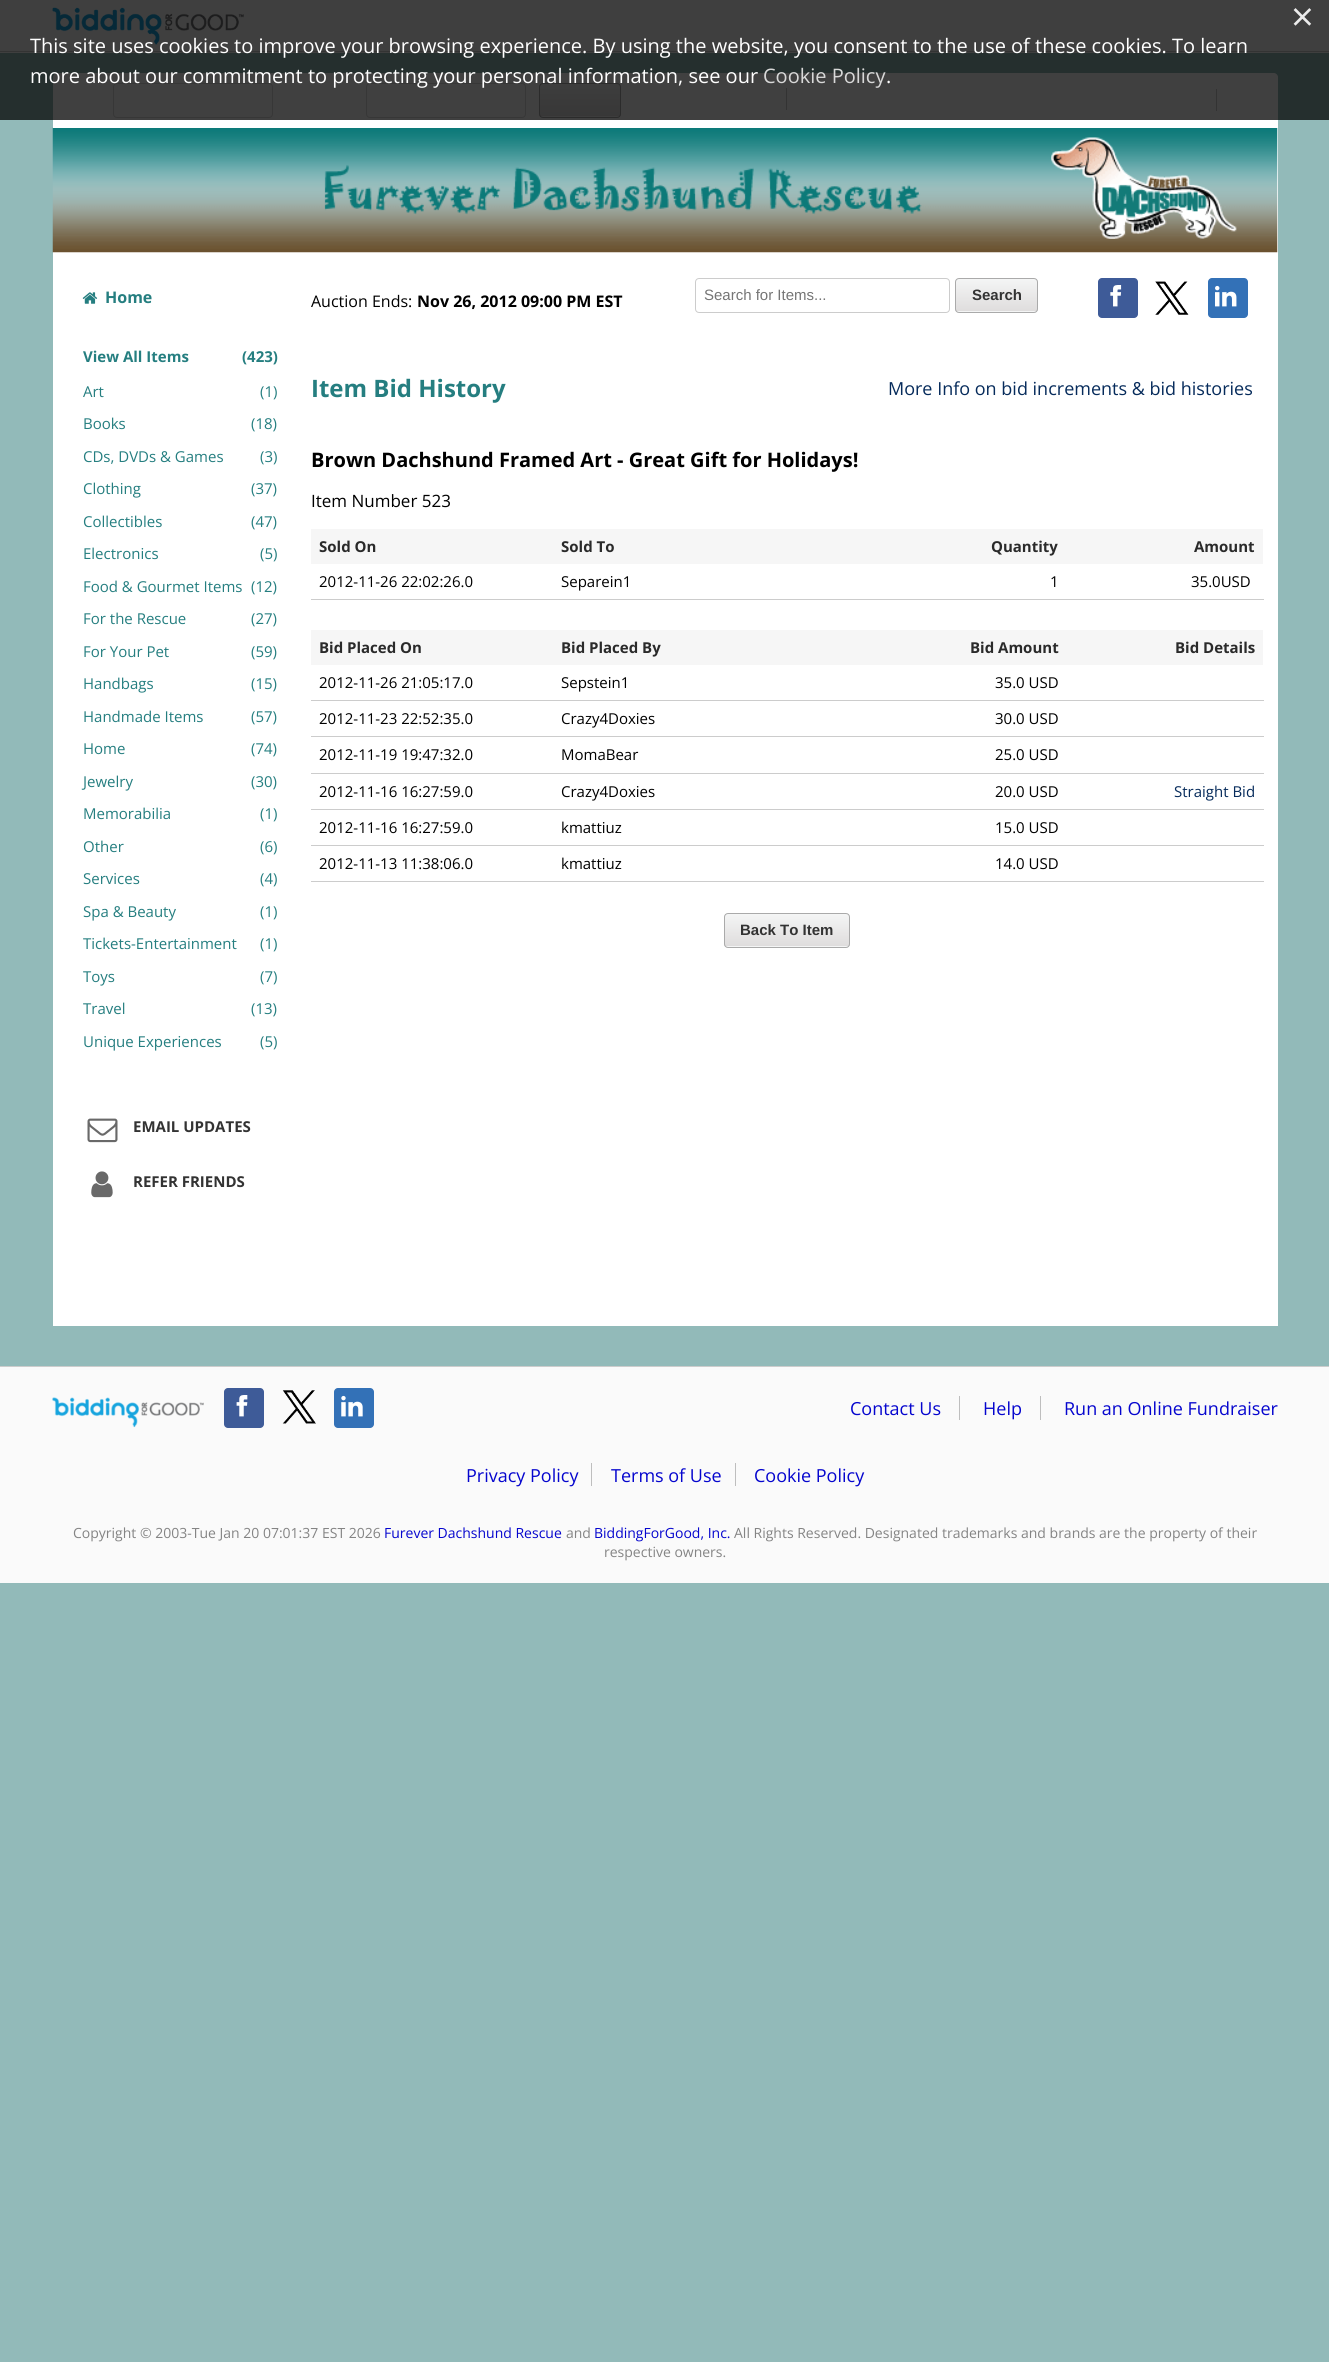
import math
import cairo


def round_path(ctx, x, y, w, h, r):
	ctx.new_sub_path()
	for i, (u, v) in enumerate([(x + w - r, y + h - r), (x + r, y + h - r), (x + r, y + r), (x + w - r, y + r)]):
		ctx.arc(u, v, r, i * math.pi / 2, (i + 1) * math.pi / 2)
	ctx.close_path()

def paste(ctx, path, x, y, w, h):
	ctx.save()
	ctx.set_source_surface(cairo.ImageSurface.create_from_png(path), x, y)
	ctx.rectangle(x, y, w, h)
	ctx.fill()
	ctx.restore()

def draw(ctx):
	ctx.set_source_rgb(0.573, 0.729, 0.725)
	ctx.paint()
	ctx.set_source_rgb(0.98, 0.98, 0.98)
	ctx.rectangle(0, 0, 1329, 53)
	ctx.fill()
	ctx.set_source_rgb(0.8, 0.8, 0.8)
	ctx.rectangle(0, 51, 1329, 1)
	ctx.fill()
	paste(ctx, 'media/1.png', 52, 7, 192, 38)
	ctx.set_source_rgb(1, 1, 1)
	ctx.rectangle(53, 128, 1225, 1198)
	ctx.fill()
	paste(ctx, 'media/2.png', 52, 127, 1226, 126)
	ctx.new_path()
	ctx.move_to(57, 73)
	ctx.line_to(1274, 73)
	ctx.curve_to(1276, 73, 1278, 75, 1278, 77)
	ctx.line_to(1278, 128)
	ctx.line_to(53, 128)
	ctx.line_to(53, 77)
	ctx.curve_to(53, 75, 55, 73, 57, 73)
	ctx.close_path()
	ctx.fill()
	round_path(ctx, 113.5, 83.5, 159, 34, 3.5)
	ctx.set_source_rgb(0.867, 0.867, 0.867)
	ctx.set_line_width(1)
	ctx.stroke()
	round_path(ctx, 366.5, 83.5, 159, 34, 3.5)
	ctx.stroke()
	ctx.save()
	round_path(ctx, 539, 83, 82, 35, 4)
	ctx.clip()
	gradient = cairo.LinearGradient(580, 84, 580, 116)
	gradient.add_color_stop_rgba(0, 0.957, 0.961, 0.961, 1)
	gradient.add_color_stop_rgba(1, 0.875, 0.867, 0.867, 1)
	ctx.set_source(gradient)
	ctx.rectangle(539, 84, 82, 32)
	ctx.fill()
	gradient = cairo.LinearGradient(580, 116, 580, 149)
	gradient.add_color_stop_rgba(0, 0.957, 0.961, 0.961, 1)
	gradient.add_color_stop_rgba(1, 0.875, 0.867, 0.867, 1)
	ctx.set_source(gradient)
	ctx.rectangle(539, 116, 82, 2)
	ctx.fill()
	ctx.restore()
	round_path(ctx, 539.5, 83.5, 81, 34, 3.5)
	ctx.set_source_rgb(0.667, 0.667, 0.667)
	ctx.stroke()
	ctx.set_source_rgb(0.8, 0.8, 0.8)
	ctx.rectangle(786, 88, 1, 22)
	ctx.rectangle(1216, 89, 1, 22)
	ctx.fill()
	ctx.set_source_rgba(0, 0, 0, 0.75)
	ctx.rectangle(0, 0, 1329, 120)
	ctx.fill()
	ctx.select_font_face('Open Sans')
	ctx.set_font_size(40)
	ctx.set_source_rgb(0.925, 0.925, 0.925)
	ctx.move_to(1291, 31)
	ctx.show_text('×')
	ctx.set_font_size(20)
	ctx.set_source_rgb(1, 1, 1)
	ctx.move_to(30, 53)
	ctx.show_text('This site uses cookies to improve your browsing experience. By using the website, you consent to the use of these cookies. To learn')
	ctx.move_to(30, 83)
	ctx.show_text('more about our commitment to protecting your personal information, see our')
	ctx.set_source_rgb(0.847, 0.847, 0.847)
	ctx.move_to(763, 83)
	ctx.show_text('Cookie Policy')
	ctx.set_source_rgb(1, 1, 1)
	ctx.move_to(886, 83)
	ctx.show_text('.')
	paste(ctx, 'media/3.png', 82, 292, 16, 12)
	ctx.select_font_face('Open Sans', cairo.FONT_SLANT_NORMAL, cairo.FONT_WEIGHT_BOLD)
	ctx.set_font_size(16)
	ctx.set_source_rgb(0.145, 0.494, 0.502)
	ctx.move_to(105, 303)
	ctx.show_text('Home')
	ctx.set_font_size(15)
	ctx.move_to(83, 362)
	ctx.show_text('View All Items')
	ctx.move_to(242, 362)
	ctx.show_text('(423)')
	ctx.select_font_face('Open Sans')
	for x, y, s in [
		(83, 397, 'Art'),
		(260, 397, '(1)'),
		(83, 429, 'Books'),
		(251, 429, '(18)'),
		(83, 462, 'CDs, DVDs & Games'),
		(260, 462, '(3)'),
		(83, 494, 'Clothing'),
		(251, 494, '(37)'),
		(83, 527, 'Collectibles'),
		(251, 527, '(47)'),
		(83, 559, 'Electronics'),
		(260, 559, '(5)'),
		(83, 592, 'Food & Gourmet Items'),
		(251, 592, '(12)'),
		(83, 624, 'For the Rescue'),
		(251, 624, '(27)'),
		(83, 657, 'For Your Pet'),
		(251, 657, '(59)'),
		(83, 689, 'Handbags'),
		(251, 689, '(15)'),
		(83, 722, 'Handmade Items'),
		(251, 722, '(57)'),
		(83, 754, 'Home'),
		(251, 754, '(74)'),
		(83, 787, 'Jewelry'),
		(251, 787, '(30)'),
		(83, 819, 'Memorabilia'),
		(260, 819, '(1)'),
		(83, 852, 'Other'),
		(260, 852, '(6)'),
		(83, 884, 'Services'),
		(260, 884, '(4)'),
		(83, 917, 'Spa & Beauty'),
		(260, 917, '(1)'),
		(83, 949, 'Tickets-Entertainment'),
		(260, 949, '(1)'),
		(83, 982, 'Toys'),
		(260, 982, '(7)'),
		(83, 1014, 'Travel'),
		(251, 1014, '(13)'),
		(83, 1047, 'Unique Experiences'),
		(260, 1047, '(5)'),
	]:
		ctx.move_to(x, y)
		ctx.show_text(s)
	paste(ctx, 'media/4.png', 87, 1118, 31, 25)
	ctx.select_font_face('Open Sans', cairo.FONT_SLANT_NORMAL, cairo.FONT_WEIGHT_BOLD)
	ctx.set_source_rgb(0.2, 0.2, 0.2)
	ctx.move_to(133, 1132)
	ctx.show_text('EMAIL UPDATES')
	paste(ctx, 'media/5.png', 91, 1171, 22, 27)
	ctx.move_to(133, 1187)
	ctx.show_text('REFER FRIENDS')
	ctx.select_font_face('Open Sans')
	ctx.set_font_size(16)
	ctx.set_source_rgb(0, 0, 0)
	ctx.move_to(311, 307)
	ctx.show_text('Auction Ends:')
	ctx.select_font_face('Open Sans', cairo.FONT_SLANT_NORMAL, cairo.FONT_WEIGHT_BOLD)
	ctx.move_to(417, 307)
	ctx.show_text('Nov 26, 2012 09:00 PM EST')
	round_path(ctx, 695.5, 278.5, 254, 34, 3.5)
	ctx.set_source_rgb(0.8, 0.8, 0.8)
	ctx.stroke()
	ctx.select_font_face('Liberation Sans')
	ctx.set_font_size(15)
	ctx.set_source_rgb(0.459, 0.459, 0.459)
	ctx.move_to(704, 300)
	ctx.show_text('Search for Items...')
	ctx.save()
	round_path(ctx, 955, 278, 83, 35, 4)
	ctx.clip()
	gradient = cairo.LinearGradient(996, 279, 996, 311)
	gradient.add_color_stop_rgba(0, 0.957, 0.961, 0.961, 1)
	gradient.add_color_stop_rgba(1, 0.875, 0.867, 0.867, 1)
	ctx.set_source(gradient)
	ctx.rectangle(955, 279, 83, 32)
	ctx.fill()
	gradient = cairo.LinearGradient(996, 311, 996, 344)
	gradient.add_color_stop_rgba(0, 0.957, 0.961, 0.961, 1)
	gradient.add_color_stop_rgba(1, 0.875, 0.867, 0.867, 1)
	ctx.set_source(gradient)
	ctx.rectangle(955, 311, 83, 2)
	ctx.fill()
	ctx.restore()
	round_path(ctx, 955.5, 278.5, 82, 34, 3.5)
	ctx.set_source_rgb(0.667, 0.667, 0.667)
	ctx.stroke()
	ctx.select_font_face('Liberation Sans', cairo.FONT_SLANT_NORMAL, cairo.FONT_WEIGHT_BOLD)
	ctx.set_source_rgb(0.2, 0.2, 0.2)
	ctx.move_to(972, 300)
	ctx.show_text('Search')
	ctx.set_source_rgb(0.243, 0.357, 0.596)
	round_path(ctx, 1098, 278, 40, 40, 4)
	ctx.fill()
	paste(ctx, 'media/6.png', 1110, 285, 12, 22)
	paste(ctx, 'media/7.png', 1155, 281, 34, 34)
	ctx.set_source_rgb(0.2, 0.443, 0.718)
	round_path(ctx, 1208, 278, 40, 40, 4)
	ctx.fill()
	paste(ctx, 'media/8.png', 1215, 285, 22, 22)
	ctx.select_font_face('Open Sans', cairo.FONT_SLANT_NORMAL, cairo.FONT_WEIGHT_BOLD)
	ctx.set_font_size(24)
	ctx.set_source_rgb(0.145, 0.494, 0.502)
	ctx.move_to(311, 397)
	ctx.show_text('Item Bid History')
	ctx.select_font_face('Open Sans')
	ctx.set_font_size(18)
	ctx.set_source_rgb(0.027, 0.169, 0.357)
	ctx.move_to(888, 395)
	ctx.show_text('More Info on bid increments & bid histories')
	ctx.select_font_face('Open Sans', cairo.FONT_SLANT_NORMAL, cairo.FONT_WEIGHT_BOLD)
	ctx.set_font_size(20)
	ctx.set_source_rgb(0, 0, 0)
	ctx.move_to(311, 467)
	ctx.show_text('Brown Dachshund Framed Art - Great Gift for Holidays!')
	ctx.select_font_face('Open Sans')
	ctx.set_font_size(17)
	ctx.move_to(311, 507)
	ctx.show_text('Item Number 523')
	ctx.set_source_rgb(0.961, 0.961, 0.961)
	ctx.rectangle(311, 529, 952, 35)
	ctx.fill()
	ctx.select_font_face('Open Sans', cairo.FONT_SLANT_NORMAL, cairo.FONT_WEIGHT_BOLD)
	ctx.set_font_size(15)
	ctx.set_source_rgb(0.165, 0.165, 0.165)
	for x, y, s in [
		(319, 552, 'Sold On'),
		(561, 552, 'Sold To'),
		(991, 552, 'Quantity'),
		(1194, 552, 'Amount'),
	]:
		ctx.move_to(x, y)
		ctx.show_text(s)
	ctx.set_source_rgb(0.8, 0.8, 0.8)
	ctx.rectangle(311, 599, 953, 1)
	ctx.fill()
	ctx.select_font_face('Open Sans')
	ctx.set_source_rgb(0, 0, 0)
	for x, y, s in [
		(319, 587, '2012-11-26 22:02:26.0'),
		(561, 587, 'Separein1'),
		(1050, 587, '1'),
		(1191, 587, '35.0USD'),
	]:
		ctx.move_to(x, y)
		ctx.show_text(s)
	ctx.set_source_rgb(0.961, 0.961, 0.961)
	ctx.rectangle(311, 630, 952, 35)
	ctx.fill()
	ctx.select_font_face('Open Sans', cairo.FONT_SLANT_NORMAL, cairo.FONT_WEIGHT_BOLD)
	ctx.set_source_rgb(0.165, 0.165, 0.165)
	for x, y, s in [
		(319, 653, 'Bid Placed On'),
		(561, 653, 'Bid Placed By'),
		(970, 653, 'Bid Amount'),
		(1175, 653, 'Bid Details'),
	]:
		ctx.move_to(x, y)
		ctx.show_text(s)
	ctx.set_source_rgb(0.8, 0.8, 0.8)
	ctx.rectangle(311, 700, 953, 1)
	ctx.fill()
	ctx.select_font_face('Open Sans')
	ctx.set_source_rgb(0, 0, 0)
	for x, y, s in [
		(319, 688, '2012-11-26 21:05:17.0'),
		(561, 688, 'Sepstein1'),
		(995, 688, '35.0 USD'),
	]:
		ctx.move_to(x, y)
		ctx.show_text(s)
	ctx.set_source_rgb(0.8, 0.8, 0.8)
	ctx.rectangle(311, 736, 953, 1)
	ctx.fill()
	ctx.set_source_rgb(0, 0, 0)
	for x, y, s in [
		(319, 724, '2012-11-23 22:52:35.0'),
		(561, 724, 'Crazy4Doxies'),
		(995, 724, '30.0 USD'),
	]:
		ctx.move_to(x, y)
		ctx.show_text(s)
	ctx.set_source_rgb(0.8, 0.8, 0.8)
	ctx.rectangle(311, 773, 953, 1)
	ctx.fill()
	ctx.set_source_rgb(0, 0, 0)
	for x, y, s in [
		(319, 760, '2012-11-19 19:47:32.0'),
		(561, 760, 'MomaBear'),
		(995, 760, '25.0 USD'),
	]:
		ctx.move_to(x, y)
		ctx.show_text(s)
	ctx.set_source_rgb(0.8, 0.8, 0.8)
	ctx.rectangle(311, 809, 953, 1)
	ctx.fill()
	ctx.set_source_rgb(0, 0, 0)
	for x, y, s in [
		(319, 797, '2012-11-16 16:27:59.0'),
		(561, 797, 'Crazy4Doxies'),
		(995, 797, '20.0 USD'),
	]:
		ctx.move_to(x, y)
		ctx.show_text(s)
	ctx.set_source_rgb(0.027, 0.169, 0.357)
	ctx.move_to(1174, 797)
	ctx.show_text('Straight Bid')
	ctx.set_source_rgb(0.8, 0.8, 0.8)
	ctx.rectangle(311, 845, 953, 1)
	ctx.fill()
	ctx.set_source_rgb(0, 0, 0)
	for x, y, s in [
		(319, 833, '2012-11-16 16:27:59.0'),
		(561, 833, 'kmattiuz'),
		(995, 833, '15.0 USD'),
	]:
		ctx.move_to(x, y)
		ctx.show_text(s)
	ctx.set_source_rgb(0.8, 0.8, 0.8)
	ctx.rectangle(311, 881, 953, 1)
	ctx.fill()
	ctx.set_source_rgb(0, 0, 0)
	for x, y, s in [
		(319, 869, '2012-11-13 11:38:06.0'),
		(561, 869, 'kmattiuz'),
		(995, 869, '14.0 USD'),
	]:
		ctx.move_to(x, y)
		ctx.show_text(s)
	ctx.save()
	round_path(ctx, 724, 913, 126, 35, 4)
	ctx.clip()
	gradient = cairo.LinearGradient(787, 914, 787, 946)
	gradient.add_color_stop_rgba(0, 0.957, 0.961, 0.961, 1)
	gradient.add_color_stop_rgba(1, 0.875, 0.867, 0.867, 1)
	ctx.set_source(gradient)
	ctx.rectangle(724, 914, 126, 32)
	ctx.fill()
	gradient = cairo.LinearGradient(787, 946, 787, 979)
	gradient.add_color_stop_rgba(0, 0.957, 0.961, 0.961, 1)
	gradient.add_color_stop_rgba(1, 0.875, 0.867, 0.867, 1)
	ctx.set_source(gradient)
	ctx.rectangle(724, 946, 126, 2)
	ctx.fill()
	ctx.restore()
	round_path(ctx, 724.5, 913.5, 125, 34, 3.5)
	ctx.set_source_rgb(0.667, 0.667, 0.667)
	ctx.stroke()
	ctx.select_font_face('Liberation Sans', cairo.FONT_SLANT_NORMAL, cairo.FONT_WEIGHT_BOLD)
	ctx.set_source_rgb(0.2, 0.2, 0.2)
	ctx.move_to(740, 935)
	ctx.show_text('Back To Item')
	ctx.set_source_rgb(0.98, 0.98, 0.98)
	ctx.rectangle(0, 1367, 1329, 216)
	ctx.fill()
	ctx.set_source_rgb(0.8, 0.8, 0.8)
	ctx.rectangle(0, 1366, 1329, 1)
	ctx.fill()
	paste(ctx, 'media/9.png', 52, 1397, 152, 31)
	ctx.set_source_rgb(0.243, 0.357, 0.596)
	round_path(ctx, 224, 1388, 40, 40, 4)
	ctx.fill()
	paste(ctx, 'media/10.png', 236, 1395, 12, 22)
	paste(ctx, 'media/11.png', 282, 1390, 34, 34)
	ctx.set_source_rgb(0.2, 0.443, 0.718)
	round_path(ctx, 334, 1388, 40, 40, 4)
	ctx.fill()
	paste(ctx, 'media/12.png', 341, 1395, 22, 22)
	ctx.set_source_rgb(0.745, 0.745, 0.745)
	ctx.rectangle(959, 1396, 1, 24)
	ctx.fill()
	ctx.select_font_face('Open Sans')
	ctx.set_font_size(18)
	ctx.set_source_rgb(0.02, 0.02, 0.808)
	ctx.move_to(850, 1415)
	ctx.show_text('Contact Us')
	ctx.set_source_rgb(0.745, 0.745, 0.745)
	ctx.rectangle(1040, 1396, 1, 24)
	ctx.fill()
	ctx.set_source_rgb(0.02, 0.02, 0.808)
	for x, y, s in [
		(983, 1415, 'Help'),
		(1064, 1415, 'Run an Online Fundraiser'),
		(466, 1482, 'Privacy Policy'),
	]:
		ctx.move_to(x, y)
		ctx.show_text(s)
	ctx.set_source_rgb(0.745, 0.745, 0.745)
	ctx.rectangle(591, 1463, 1, 23)
	ctx.fill()
	ctx.set_source_rgb(0.02, 0.02, 0.808)
	ctx.move_to(611, 1482)
	ctx.show_text('Terms of Use')
	ctx.set_source_rgb(0.745, 0.745, 0.745)
	ctx.rectangle(735, 1463, 1, 23)
	ctx.fill()
	ctx.set_source_rgb(0.02, 0.02, 0.808)
	ctx.move_to(754, 1482)
	ctx.show_text('Cookie Policy')
	ctx.set_font_size(14)
	ctx.set_source_rgb(0.518, 0.518, 0.518)
	ctx.move_to(73, 1538)
	ctx.show_text('Copyright © 2003-Tue Jan 20 07:01:37 EST 2026')
	ctx.set_source_rgb(0.02, 0.02, 0.808)
	ctx.move_to(384, 1538)
	ctx.show_text('Furever Dachshund Rescue')
	ctx.set_source_rgb(0.518, 0.518, 0.518)
	ctx.move_to(566, 1538)
	ctx.show_text('and')
	ctx.set_source_rgb(0.02, 0.02, 0.808)
	ctx.move_to(594, 1538)
	ctx.show_text('BiddingForGood, Inc.')
	ctx.set_source_rgb(0.518, 0.518, 0.518)
	ctx.move_to(734, 1538)
	ctx.show_text('All Rights Reserved. Designated trademarks and brands are the property of their')
	ctx.move_to(604, 1557)
	ctx.show_text('respective owners.')


surface = cairo.ImageSurface(cairo.FORMAT_RGB24, 1329, 2362)
ctx = cairo.Context(surface)
options = cairo.FontOptions()
options.set_hint_metrics(cairo.HINT_METRICS_OFF)
options.set_hint_style(cairo.HINT_STYLE_NONE)
ctx.set_font_options(options)
ctx.set_miter_limit(4)
draw(ctx)
surface.write_to_png('image.png')
